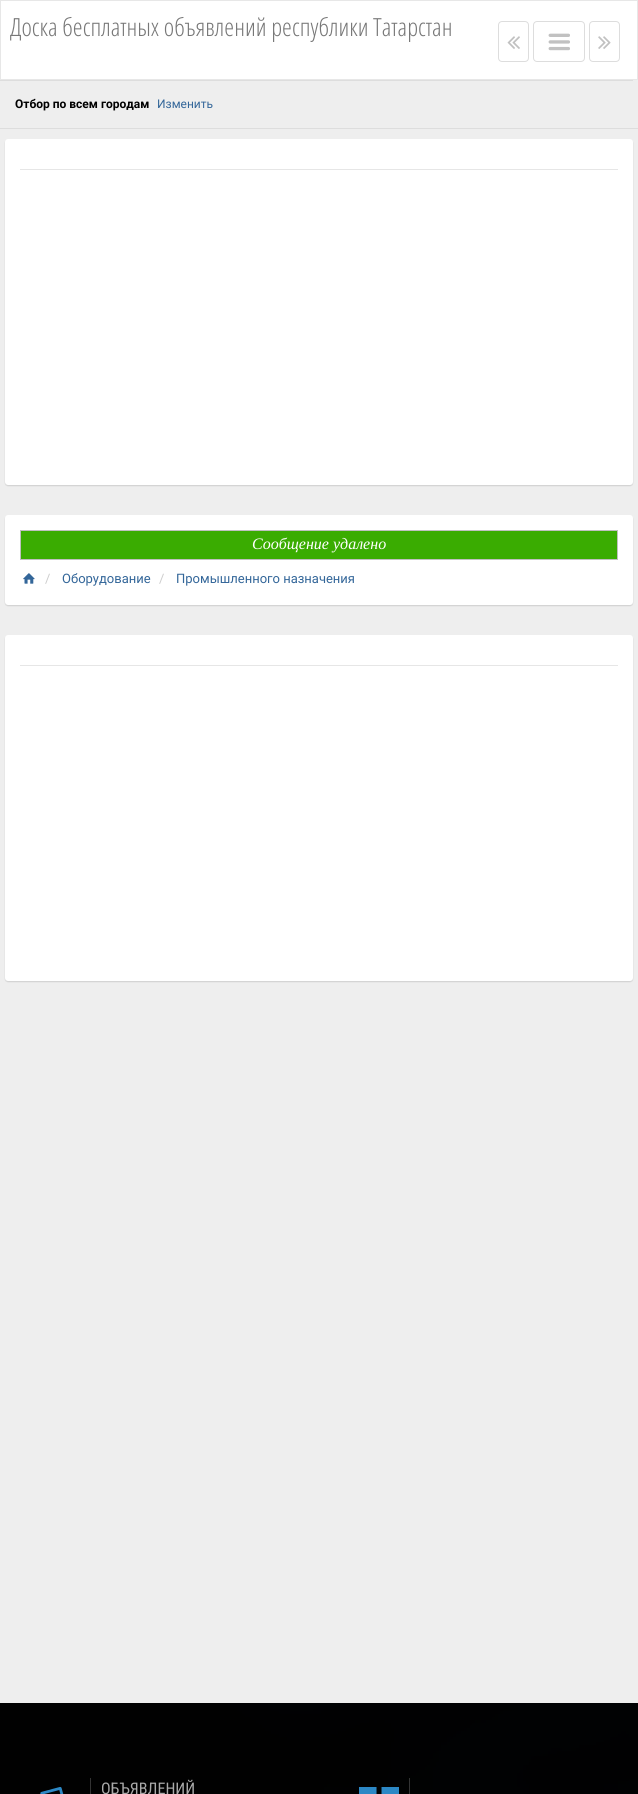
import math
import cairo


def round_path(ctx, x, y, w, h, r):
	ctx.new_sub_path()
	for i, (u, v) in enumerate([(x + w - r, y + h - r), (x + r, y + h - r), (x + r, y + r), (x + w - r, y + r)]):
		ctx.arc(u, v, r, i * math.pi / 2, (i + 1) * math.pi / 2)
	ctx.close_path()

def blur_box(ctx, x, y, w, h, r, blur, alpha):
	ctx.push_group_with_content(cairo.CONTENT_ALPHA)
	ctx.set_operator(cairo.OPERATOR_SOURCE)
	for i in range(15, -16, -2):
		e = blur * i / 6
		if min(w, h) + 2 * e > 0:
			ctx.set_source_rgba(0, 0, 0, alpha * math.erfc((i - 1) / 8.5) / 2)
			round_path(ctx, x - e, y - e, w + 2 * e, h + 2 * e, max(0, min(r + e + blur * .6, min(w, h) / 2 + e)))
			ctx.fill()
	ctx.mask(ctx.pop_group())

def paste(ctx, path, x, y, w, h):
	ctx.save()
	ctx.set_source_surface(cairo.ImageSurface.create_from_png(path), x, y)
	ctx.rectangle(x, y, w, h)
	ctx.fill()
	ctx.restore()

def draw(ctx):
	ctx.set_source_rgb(0.933, 0.933, 0.933)
	ctx.paint()
	ctx.set_source_rgb(1, 1, 1)
	ctx.rectangle(0.5, 0.5, 637, 79)
	ctx.fill_preserve()
	ctx.set_source_rgb(0.906, 0.906, 0.906)
	ctx.set_line_width(1)
	ctx.stroke()
	ctx.set_source_rgb(0.867, 0.867, 0.867)
	ctx.rectangle(0, 80, 633, 1)
	ctx.fill()
	ctx.select_font_face('Open Sans Condensed Light')
	ctx.set_font_size(25)
	ctx.set_source_rgb(0.467, 0.467, 0.467)
	ctx.move_to(10, 36)
	ctx.show_text('Доска бесплатных объявлений республики Татарстан')
	round_path(ctx, 498.5, 21.5, 30, 40, 3.5)
	ctx.set_source_rgb(0.867, 0.867, 0.867)
	ctx.stroke()
	paste(ctx, 'media/1.png', 507, 36, 13, 13)
	round_path(ctx, 533.5, 21.5, 51, 40, 3.5)
	ctx.stroke()
	paste(ctx, 'media/2.png', 548, 33, 22, 18)
	round_path(ctx, 589.5, 21.5, 30, 40, 3.5)
	ctx.stroke()
	paste(ctx, 'media/3.png', 598, 36, 13, 13)
	ctx.rectangle(0, 128, 638, 1)
	ctx.fill()
	ctx.select_font_face('Roboto', cairo.FONT_SLANT_NORMAL, cairo.FONT_WEIGHT_BOLD)
	ctx.set_font_size(12)
	ctx.set_source_rgb(0, 0, 0)
	ctx.move_to(15, 108)
	ctx.show_text('Отбор по всем городам')
	ctx.select_font_face('Roboto')
	ctx.set_source_rgb(0.2, 0.4, 0.6)
	ctx.move_to(157, 108)
	ctx.show_text('Изменить')
	ctx.set_source_rgb(0.706, 0.706, 0.706)
	blur_box(ctx, 5, 140, 628, 346, 3, 0.5, 0.5)
	ctx.set_source_rgb(1, 1, 1)
	round_path(ctx, 5, 139, 628, 346, 3)
	ctx.fill()
	ctx.set_source_rgb(0.902, 0.902, 0.902)
	ctx.rectangle(20, 169, 598, 1)
	ctx.fill()
	ctx.set_source_rgb(0.706, 0.706, 0.706)
	blur_box(ctx, 5, 516, 628, 90, 3, 0.5, 0.5)
	ctx.set_source_rgb(1, 1, 1)
	round_path(ctx, 5, 515, 628, 90, 3)
	ctx.fill()
	ctx.set_source_rgb(0.227, 0.675, 0.004)
	ctx.rectangle(20.5, 530.5, 597, 29)
	ctx.fill_preserve()
	ctx.set_source_rgb(0.753, 0.753, 0.753)
	ctx.stroke()
	ctx.select_font_face('Liberation Serif', cairo.FONT_SLANT_ITALIC)
	ctx.set_font_size(16)
	ctx.set_source_rgb(1, 1, 1)
	ctx.move_to(252, 549)
	ctx.show_text('Сообщение удалено')
	paste(ctx, 'media/4.png', 23, 573, 12, 11)
	ctx.select_font_face('Roboto')
	ctx.set_font_size(13)
	ctx.set_source_rgb(0.8, 0.8, 0.8)
	ctx.move_to(45, 583)
	ctx.show_text('/')
	ctx.set_source_rgb(0.2, 0.4, 0.6)
	ctx.move_to(62, 583)
	ctx.show_text('Оборудование')
	ctx.set_source_rgb(0.8, 0.8, 0.8)
	ctx.move_to(159, 583)
	ctx.show_text('/')
	ctx.set_source_rgb(0.2, 0.4, 0.6)
	ctx.move_to(176, 583)
	ctx.show_text('Промышленного назначения')
	ctx.set_source_rgb(0.706, 0.706, 0.706)
	blur_box(ctx, 5, 636, 628, 346, 3, 0.5, 0.5)
	ctx.set_source_rgb(1, 1, 1)
	round_path(ctx, 5, 635, 628, 346, 3)
	ctx.fill()
	ctx.set_source_rgb(0.902, 0.902, 0.902)
	ctx.rectangle(20, 665, 598, 1)
	ctx.fill()
	paste(ctx, 'media/5.png', 0, 1703, 638, 91)
	ctx.set_source_rgb(0.2, 0.2, 0.2)
	ctx.rectangle(90, 1778, 1, 16)
	ctx.fill()
	paste(ctx, 'media/6.png', 40, 1787, 24, 7)
	ctx.select_font_face('Roboto Condensed')
	ctx.set_font_size(16)
	ctx.set_source_rgb(0.667, 0.667, 0.667)
	ctx.move_to(101, 1794)
	ctx.show_text('ОБЪЯВЛЕНИЙ')
	ctx.set_source_rgb(0.2, 0.204, 0.204)
	ctx.rectangle(409, 1778, 1, 16)
	ctx.fill()
	paste(ctx, 'media/7.png', 359, 1787, 40, 7)


surface = cairo.ImageSurface(cairo.FORMAT_RGB24, 638, 1794)
ctx = cairo.Context(surface)
options = cairo.FontOptions()
options.set_hint_metrics(cairo.HINT_METRICS_OFF)
options.set_hint_style(cairo.HINT_STYLE_NONE)
ctx.set_font_options(options)
ctx.set_miter_limit(4)
draw(ctx)
surface.write_to_png('image.png')
